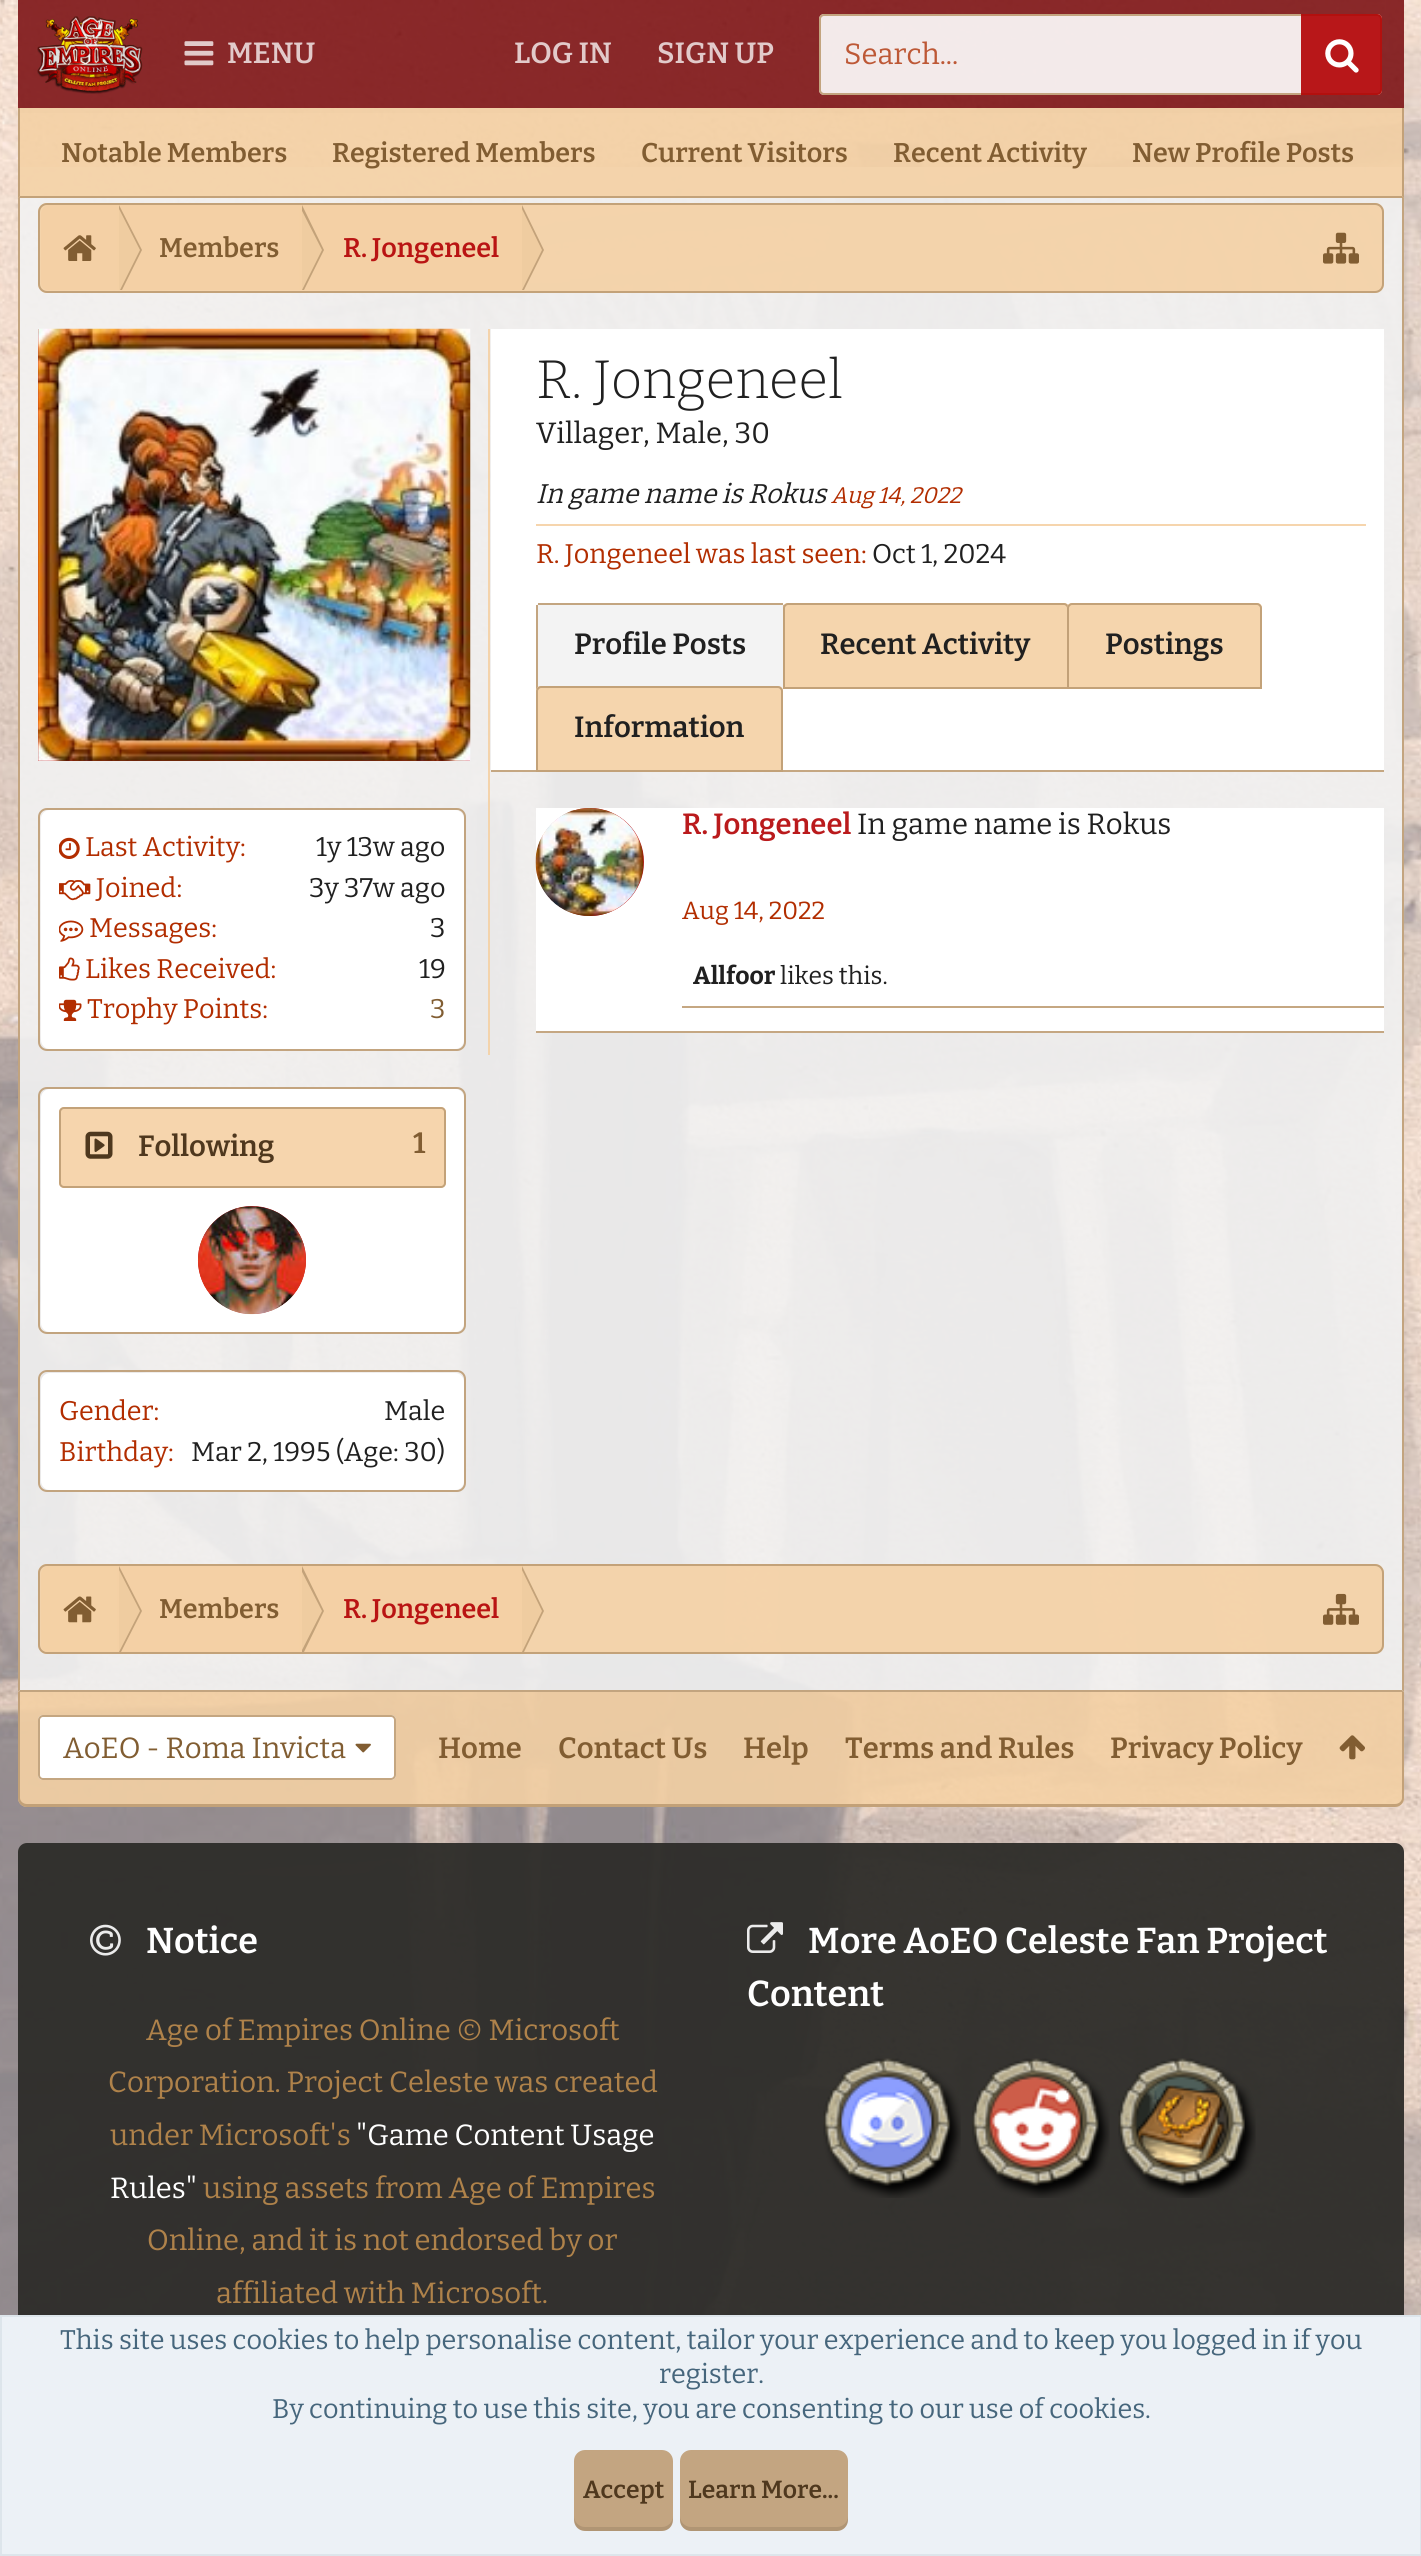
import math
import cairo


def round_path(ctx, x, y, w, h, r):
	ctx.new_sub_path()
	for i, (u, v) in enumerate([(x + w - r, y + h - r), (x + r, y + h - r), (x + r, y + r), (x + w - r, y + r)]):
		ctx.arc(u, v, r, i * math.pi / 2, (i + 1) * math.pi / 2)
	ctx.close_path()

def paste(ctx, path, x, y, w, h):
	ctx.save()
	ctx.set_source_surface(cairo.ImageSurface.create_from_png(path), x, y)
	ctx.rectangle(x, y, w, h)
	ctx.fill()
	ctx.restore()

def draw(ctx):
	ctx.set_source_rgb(0.996, 0.957, 1)
	ctx.paint()
	paste(ctx, 'media/1.png', 0, 0, 1421, 2315)
	ctx.set_source_rgba(0, 0, 0, 0.1)
	ctx.rectangle(18, 108, 1386, 5)
	ctx.fill()
	ctx.set_source_rgba(0.494, 0.082, 0.09, 0.9)
	ctx.rectangle(18, 0, 1386, 108)
	ctx.fill()
	ctx.select_font_face('Bitter SemiBold')
	ctx.set_font_size(29.25)
	ctx.set_source_rgb(0.886, 0.792, 0.792)
	ctx.move_to(514, 63)
	ctx.show_text('LOG IN')
	ctx.move_to(657, 63)
	ctx.show_text('SIGN UP')
	ctx.set_source_rgba(1, 1, 1, 0.9)
	round_path(ctx, 819, 14, 563, 81, 5)
	ctx.fill()
	round_path(ctx, 820, 15, 561, 79, 4)
	ctx.set_source_rgba(0.745, 0.616, 0.455, 0.9)
	ctx.stroke()
	ctx.select_font_face('Bitter')
	ctx.set_source_rgb(0.741, 0.345, 0.212)
	ctx.move_to(844, 64)
	ctx.show_text('Search...')
	ctx.set_source_rgba(0.698, 0, 0.012, 0.9)
	ctx.new_path()
	ctx.move_to(1301, 14)
	ctx.line_to(1377, 14)
	ctx.curve_to(1380, 14, 1382, 16, 1382, 19)
	ctx.line_to(1382, 90)
	ctx.curve_to(1382, 93, 1380, 95, 1377, 95)
	ctx.line_to(1301, 95)
	ctx.close_path()
	ctx.fill()
	paste(ctx, 'media/2.png', 1325, 39, 34, 34)
	paste(ctx, 'media/3.png', 37, 16, 106, 78)
	paste(ctx, 'media/4.png', 184, 41, 30, 25)
	ctx.select_font_face('Bitter SemiBold')
	ctx.set_source_rgb(0.886, 0.792, 0.792)
	ctx.move_to(227, 63)
	ctx.show_text('MENU')
	ctx.set_source_rgba(0.949, 0.949, 0.949, 0.9)
	ctx.rectangle(18, 167, 1386, 1525)
	ctx.fill()
	ctx.set_source_rgba(0.745, 0.616, 0.455, 0.9)
	ctx.new_path()
	ctx.move_to(1404, 166)
	ctx.line_to(1404, 1692)
	ctx.line_to(1402, 1690)
	ctx.line_to(1402, 166)
	ctx.close_path()
	ctx.fill()
	ctx.new_path()
	ctx.move_to(1404, 1692)
	ctx.line_to(18, 1692)
	ctx.line_to(20, 1690)
	ctx.line_to(1402, 1690)
	ctx.close_path()
	ctx.fill()
	ctx.new_path()
	ctx.move_to(18, 1692)
	ctx.line_to(18, 166)
	ctx.line_to(20, 166)
	ctx.line_to(20, 1690)
	ctx.close_path()
	ctx.fill()
	ctx.set_source_rgba(0.957, 0.816, 0.643, 0.9)
	ctx.rectangle(18, 108, 1386, 90)
	ctx.fill()
	ctx.set_source_rgba(0.745, 0.616, 0.455, 0.9)
	ctx.new_path()
	ctx.move_to(1404, 108)
	ctx.line_to(1404, 198)
	ctx.line_to(1402, 196)
	ctx.line_to(1402, 108)
	ctx.close_path()
	ctx.fill()
	ctx.new_path()
	ctx.move_to(1404, 198)
	ctx.line_to(18, 198)
	ctx.line_to(20, 196)
	ctx.line_to(1402, 196)
	ctx.close_path()
	ctx.fill()
	ctx.new_path()
	ctx.move_to(18, 198)
	ctx.line_to(18, 108)
	ctx.line_to(20, 108)
	ctx.line_to(20, 196)
	ctx.close_path()
	ctx.fill()
	ctx.set_font_size(27)
	ctx.set_source_rgb(0.506, 0.365, 0.196)
	for x, y, s in [
		(61, 162, 'Notable Members'),
		(332, 162, 'Registered Members'),
		(641, 162, 'Current Visitors'),
		(893, 162, 'Recent Activity'),
		(1132, 162, 'New Profile Posts'),
	]:
		ctx.move_to(x, y)
		ctx.show_text(s)
	ctx.set_source_rgba(0.957, 0.816, 0.643, 0.9)
	round_path(ctx, 38, 203, 1346, 90, 9)
	ctx.fill()
	round_path(ctx, 39, 204, 1344, 88, 8)
	ctx.set_source_rgba(0.745, 0.616, 0.455, 0.9)
	ctx.stroke()
	ctx.save()
	round_path(ctx, 41, 205, 1341, 85, 7)
	ctx.clip()
	ctx.set_source_rgb(0.957, 0.816, 0.647)
	ctx.new_path()
	ctx.move_to(50, 205)
	ctx.line_to(119, 205)
	ctx.line_to(119, 293)
	ctx.line_to(50, 293)
	ctx.curve_to(45, 293, 41, 289, 41, 284)
	ctx.line_to(41, 214)
	ctx.curve_to(41, 209, 45, 205, 50, 205)
	ctx.close_path()
	ctx.fill()
	ctx.restore()
	paste(ctx, 'media/5.png', 63, 235, 33, 26)
	ctx.set_source_rgb(0.957, 0.816, 0.647)
	ctx.rectangle(119, 205, 403, 85)
	ctx.fill()
	ctx.set_source_rgb(0.765, 0.635, 0.475)
	ctx.new_path()
	ctx.move_to(122, 290)
	ctx.line_to(119, 290)
	ctx.line_to(119, 205)
	ctx.line_to(142, 250)
	ctx.close_path()
	ctx.fill()
	ctx.set_source_rgba(0.957, 0.816, 0.643, 0.9)
	ctx.new_path()
	ctx.move_to(120, 290)
	ctx.line_to(117, 290)
	ctx.line_to(117, 205)
	ctx.line_to(140, 250)
	ctx.close_path()
	ctx.fill()
	ctx.set_source_rgb(0.506, 0.365, 0.196)
	ctx.move_to(159, 257)
	ctx.show_text('Members')
	ctx.set_source_rgb(0.765, 0.635, 0.475)
	ctx.new_path()
	ctx.move_to(304, 290)
	ctx.line_to(302, 290)
	ctx.line_to(302, 205)
	ctx.line_to(324, 250)
	ctx.close_path()
	ctx.fill()
	ctx.set_source_rgba(0.957, 0.816, 0.643, 0.9)
	ctx.new_path()
	ctx.move_to(302, 290)
	ctx.line_to(299, 290)
	ctx.line_to(299, 205)
	ctx.line_to(322, 250)
	ctx.close_path()
	ctx.fill()
	ctx.set_source_rgb(0.725, 0.082, 0.075)
	ctx.move_to(343, 257)
	ctx.show_text('R. Jongeneel')
	ctx.set_source_rgb(0.765, 0.635, 0.478)
	ctx.new_path()
	ctx.move_to(524, 290)
	ctx.line_to(522, 290)
	ctx.line_to(522, 205)
	ctx.line_to(544, 250)
	ctx.close_path()
	ctx.fill()
	ctx.set_source_rgba(0.957, 0.816, 0.643, 0.9)
	ctx.new_path()
	ctx.move_to(522, 290)
	ctx.line_to(520, 290)
	ctx.line_to(520, 205)
	ctx.line_to(542, 250)
	ctx.close_path()
	ctx.fill()
	paste(ctx, 'media/6.png', 1323, 232, 36, 32)
	ctx.rectangle(488, 329, 2, 726)
	ctx.fill()
	ctx.set_source_rgb(1, 1, 1)
	ctx.rectangle(491, 329, 893, 441)
	ctx.fill()
	ctx.select_font_face('Bitter Light')
	ctx.set_font_size(54)
	ctx.set_source_rgb(0.125, 0.125, 0.125)
	ctx.move_to(536, 398)
	ctx.show_text('R. Jongeneel')
	ctx.select_font_face('Bitter')
	ctx.set_font_size(29.25)
	ctx.move_to(536, 443)
	ctx.show_text('Villager, Male, 30')
	ctx.select_font_face('Bitter', cairo.FONT_SLANT_ITALIC)
	ctx.set_font_size(27)
	ctx.move_to(536, 503)
	ctx.show_text('In game name is Rokus')
	ctx.set_font_size(22.5)
	ctx.set_source_rgb(0.698, 0.176, 0)
	ctx.move_to(831, 503)
	ctx.show_text('Aug 14, 2022')
	ctx.set_source_rgb(0.961, 0.835, 0.678)
	ctx.rectangle(536, 524, 830, 2)
	ctx.fill()
	ctx.select_font_face('Bitter')
	ctx.set_font_size(27)
	ctx.set_source_rgb(0.698, 0.176, 0)
	ctx.move_to(536, 563)
	ctx.show_text('R. Jongeneel was last seen:')
	ctx.set_source_rgb(0.125, 0.125, 0.125)
	ctx.move_to(872, 563)
	ctx.show_text('Oct 1, 2024')
	ctx.set_source_rgb(0.773, 0.655, 0.51)
	ctx.rectangle(491, 770, 893, 2)
	ctx.fill()
	ctx.set_source_rgb(0.953, 0.953, 0.953)
	ctx.new_path()
	ctx.move_to(541, 603)
	ctx.line_to(780, 603)
	ctx.curve_to(783, 603, 785, 605, 785, 608)
	ctx.line_to(785, 689)
	ctx.line_to(536, 689)
	ctx.line_to(536, 608)
	ctx.curve_to(536, 605, 538, 603, 541, 603)
	ctx.close_path()
	ctx.fill()
	ctx.set_source_rgba(0.745, 0.616, 0.455, 0.9)
	ctx.rectangle(538, 603, 245, 2)
	ctx.fill()
	ctx.rectangle(783, 605, 2, 84)
	ctx.fill()
	ctx.rectangle(536, 605, 2, 84)
	ctx.fill()
	ctx.select_font_face('Bitter SemiBold')
	ctx.set_font_size(29.25)
	ctx.set_source_rgb(0.125, 0.125, 0.125)
	ctx.move_to(574, 654)
	ctx.show_text('Profile Posts')
	ctx.set_source_rgba(0.957, 0.816, 0.643, 0.9)
	ctx.new_path()
	ctx.move_to(788, 603)
	ctx.line_to(1064, 603)
	ctx.curve_to(1067, 603, 1069, 605, 1069, 608)
	ctx.line_to(1069, 689)
	ctx.line_to(783, 689)
	ctx.line_to(783, 608)
	ctx.curve_to(783, 605, 785, 603, 788, 603)
	ctx.close_path()
	ctx.fill()
	ctx.new_path()
	ctx.move_to(788, 604)
	ctx.line_to(1064, 604)
	ctx.curve_to(1066, 604, 1068, 606, 1068, 608)
	ctx.line_to(1068, 688)
	ctx.line_to(784, 688)
	ctx.line_to(784, 608)
	ctx.curve_to(784, 606, 786, 604, 788, 604)
	ctx.close_path()
	ctx.set_source_rgba(0.745, 0.616, 0.455, 0.9)
	ctx.stroke()
	ctx.set_source_rgb(0.125, 0.125, 0.125)
	ctx.move_to(820, 654)
	ctx.show_text('Recent Activity')
	ctx.set_source_rgba(0.957, 0.816, 0.643, 0.9)
	ctx.new_path()
	ctx.move_to(1072, 603)
	ctx.line_to(1257, 603)
	ctx.curve_to(1260, 603, 1262, 605, 1262, 608)
	ctx.line_to(1262, 689)
	ctx.line_to(1067, 689)
	ctx.line_to(1067, 608)
	ctx.curve_to(1067, 605, 1069, 603, 1072, 603)
	ctx.close_path()
	ctx.fill()
	ctx.new_path()
	ctx.move_to(1072, 604)
	ctx.line_to(1257, 604)
	ctx.curve_to(1259, 604, 1261, 606, 1261, 608)
	ctx.line_to(1261, 688)
	ctx.line_to(1068, 688)
	ctx.line_to(1068, 608)
	ctx.curve_to(1068, 606, 1070, 604, 1072, 604)
	ctx.close_path()
	ctx.set_source_rgba(0.745, 0.616, 0.455, 0.9)
	ctx.stroke()
	ctx.set_source_rgb(0.125, 0.125, 0.125)
	ctx.move_to(1105, 654)
	ctx.show_text('Postings')
	ctx.set_source_rgba(0.957, 0.816, 0.643, 0.9)
	ctx.new_path()
	ctx.move_to(541, 686)
	ctx.line_to(778, 686)
	ctx.curve_to(781, 686, 783, 688, 783, 691)
	ctx.line_to(783, 772)
	ctx.line_to(536, 772)
	ctx.line_to(536, 691)
	ctx.curve_to(536, 688, 538, 686, 541, 686)
	ctx.close_path()
	ctx.fill()
	ctx.new_path()
	ctx.move_to(541, 687)
	ctx.line_to(778, 687)
	ctx.curve_to(780, 687, 782, 689, 782, 691)
	ctx.line_to(782, 771)
	ctx.line_to(537, 771)
	ctx.line_to(537, 691)
	ctx.curve_to(537, 689, 539, 687, 541, 687)
	ctx.close_path()
	ctx.set_source_rgba(0.745, 0.616, 0.455, 0.9)
	ctx.stroke()
	ctx.set_source_rgb(0.125, 0.125, 0.125)
	ctx.move_to(574, 737)
	ctx.show_text('Information')
	ctx.set_source_rgb(1, 1, 1)
	ctx.rectangle(536, 808, 848, 223)
	ctx.fill()
	ctx.set_source_rgb(0.773, 0.655, 0.51)
	ctx.rectangle(536, 1031, 848, 2)
	ctx.fill()
	ctx.set_source_rgb(0.729, 0.102, 0.11)
	ctx.arc(590, 862, 54, 0, 2 * math.pi)
	ctx.fill()
	paste(ctx, 'media/7.png', 535, 808, 109, 108)
	ctx.move_to(682, 834)
	ctx.show_text('R. Jongeneel')
	ctx.select_font_face('Bitter')
	ctx.set_source_rgb(0.125, 0.125, 0.125)
	ctx.move_to(857, 834)
	ctx.show_text('In game name is Rokus')
	ctx.set_font_size(24.75)
	ctx.set_source_rgb(0.698, 0.176, 0)
	ctx.move_to(682, 919)
	ctx.show_text('Aug 14, 2022')
	ctx.set_source_rgb(0.773, 0.655, 0.51)
	ctx.rectangle(682, 1006, 702, 2)
	ctx.fill()
	ctx.select_font_face('Bitter', cairo.FONT_SLANT_NORMAL, cairo.FONT_WEIGHT_BOLD)
	ctx.set_source_rgb(0.125, 0.125, 0.125)
	ctx.move_to(693, 984)
	ctx.show_text('Allfoor')
	ctx.select_font_face('Bitter')
	ctx.move_to(780, 984)
	ctx.show_text('likes this.')
	ctx.set_source_rgba(0.698, 0, 0.012, 0.9)
	ctx.rectangle(38, 329, 432, 432)
	ctx.fill()
	paste(ctx, 'media/8.png', 38, 328, 433, 433)
	round_path(ctx, 39, 809, 426, 241, 8)
	ctx.set_source_rgba(0.745, 0.616, 0.455, 0.9)
	ctx.stroke()
	ctx.set_source_rgb(1, 1, 1)
	round_path(ctx, 41, 810, 423, 239, 9)
	ctx.fill()
	paste(ctx, 'media/9.png', 59, 837, 21, 22)
	ctx.set_font_size(27)
	ctx.set_source_rgb(0.698, 0.176, 0)
	ctx.move_to(85, 856)
	ctx.show_text('Last Activity:')
	ctx.set_source_rgb(0.125, 0.125, 0.125)
	ctx.move_to(316, 856)
	ctx.show_text('1y 13w ago')
	paste(ctx, 'media/10.png', 59, 880, 32, 21)
	ctx.set_source_rgb(0.698, 0.176, 0)
	ctx.move_to(96, 897)
	ctx.show_text('Joined:')
	ctx.set_source_rgb(0.125, 0.125, 0.125)
	ctx.move_to(309, 897)
	ctx.show_text('3y 37w ago')
	paste(ctx, 'media/11.png', 59, 920, 25, 22)
	ctx.set_source_rgb(0.698, 0.176, 0)
	ctx.move_to(89, 937)
	ctx.show_text('Messages:')
	ctx.set_source_rgb(0.125, 0.125, 0.125)
	ctx.move_to(430, 937)
	ctx.show_text('3')
	paste(ctx, 'media/12.png', 59, 957, 21, 24)
	ctx.set_source_rgb(0.698, 0.176, 0)
	ctx.move_to(85, 978)
	ctx.show_text('Likes Received:')
	ctx.set_source_rgb(0.125, 0.125, 0.125)
	ctx.move_to(419, 978)
	ctx.show_text('19')
	paste(ctx, 'media/13.png', 59, 999, 23, 22)
	ctx.set_source_rgb(0.698, 0.176, 0)
	ctx.move_to(87, 1018)
	ctx.show_text('Trophy Points:')
	ctx.set_source_rgb(0.506, 0.365, 0.196)
	ctx.move_to(430, 1018)
	ctx.show_text('3')
	round_path(ctx, 39, 1088, 426, 245, 8)
	ctx.set_source_rgba(0.745, 0.616, 0.455, 0.9)
	ctx.stroke()
	ctx.set_source_rgb(1, 1, 1)
	round_path(ctx, 41, 1089, 423, 243, 9)
	ctx.fill()
	ctx.set_source_rgb(0.961, 0.835, 0.678)
	round_path(ctx, 59, 1107, 387, 81, 5)
	ctx.fill()
	round_path(ctx, 60, 1108, 385, 79, 4)
	ctx.set_source_rgba(0.745, 0.616, 0.455, 0.9)
	ctx.stroke()
	paste(ctx, 'media/14.png', 85, 1131, 28, 28)
	ctx.select_font_face('Bitter SemiBold')
	ctx.set_font_size(29.25)
	ctx.set_source_rgb(0.31, 0.22, 0.118)
	ctx.move_to(138, 1156)
	ctx.show_text('Following')
	ctx.set_source_rgb(0.506, 0.365, 0.196)
	ctx.move_to(413, 1153)
	ctx.show_text('1')
	ctx.set_source_rgb(0.729, 0.102, 0.11)
	ctx.new_path()
	ctx.arc(252, 1260, 54, 0, 2 * math.pi)
	ctx.fill()
	paste(ctx, 'media/15.png', 197, 1206, 109, 109)
	round_path(ctx, 39, 1371, 426, 120, 8)
	ctx.set_source_rgba(0.745, 0.616, 0.455, 0.9)
	ctx.stroke()
	ctx.set_source_rgb(1, 1, 1)
	round_path(ctx, 41, 1373, 423, 117, 9)
	ctx.fill()
	ctx.select_font_face('Bitter')
	ctx.set_font_size(27)
	ctx.set_source_rgb(0.698, 0.176, 0)
	ctx.move_to(59, 1420)
	ctx.show_text('Gender:')
	ctx.set_source_rgb(0.125, 0.125, 0.125)
	ctx.move_to(384, 1420)
	ctx.show_text('Male')
	ctx.set_source_rgb(0.698, 0.176, 0)
	ctx.move_to(59, 1461)
	ctx.show_text('Birthday:')
	ctx.set_source_rgb(0.125, 0.125, 0.125)
	ctx.move_to(191, 1461)
	ctx.show_text('Mar 2, 1995 (Age: 30)')
	ctx.set_source_rgba(0.957, 0.816, 0.643, 0.9)
	round_path(ctx, 38, 1564, 1346, 90, 9)
	ctx.fill()
	round_path(ctx, 39, 1565, 1344, 88, 8)
	ctx.set_source_rgba(0.745, 0.616, 0.455, 0.9)
	ctx.stroke()
	ctx.save()
	round_path(ctx, 41, 1566, 1341, 86, 7)
	ctx.clip()
	ctx.set_source_rgba(0.957, 0.816, 0.643, 0.9)
	ctx.new_path()
	ctx.move_to(50, 1566)
	ctx.line_to(119, 1566)
	ctx.line_to(119, 1654)
	ctx.line_to(50, 1654)
	ctx.curve_to(45, 1654, 41, 1650, 41, 1645)
	ctx.line_to(41, 1575)
	ctx.curve_to(41, 1570, 45, 1566, 50, 1566)
	ctx.close_path()
	ctx.fill()
	ctx.restore()
	paste(ctx, 'media/16.png', 63, 1596, 33, 27)
	ctx.set_source_rgb(0.957, 0.816, 0.647)
	ctx.rectangle(119, 1566, 403, 86)
	ctx.fill()
	ctx.set_source_rgb(0.765, 0.635, 0.475)
	ctx.new_path()
	ctx.move_to(121, 1652)
	ctx.line_to(119, 1652)
	ctx.line_to(119, 1566)
	ctx.line_to(142, 1611)
	ctx.close_path()
	ctx.fill()
	ctx.set_source_rgba(0.957, 0.816, 0.643, 0.9)
	ctx.new_path()
	ctx.move_to(119, 1652)
	ctx.line_to(117, 1652)
	ctx.line_to(117, 1566)
	ctx.line_to(140, 1611)
	ctx.close_path()
	ctx.fill()
	ctx.select_font_face('Bitter SemiBold')
	ctx.set_source_rgb(0.506, 0.365, 0.196)
	ctx.move_to(159, 1618)
	ctx.show_text('Members')
	ctx.set_source_rgb(0.765, 0.635, 0.475)
	ctx.new_path()
	ctx.move_to(304, 1652)
	ctx.line_to(302, 1652)
	ctx.line_to(302, 1566)
	ctx.line_to(324, 1611)
	ctx.close_path()
	ctx.fill()
	ctx.set_source_rgba(0.957, 0.816, 0.643, 0.9)
	ctx.new_path()
	ctx.move_to(301, 1652)
	ctx.line_to(299, 1652)
	ctx.line_to(299, 1566)
	ctx.line_to(322, 1611)
	ctx.close_path()
	ctx.fill()
	ctx.set_source_rgb(0.725, 0.082, 0.075)
	ctx.move_to(343, 1618)
	ctx.show_text('R. Jongeneel')
	ctx.set_source_rgb(0.765, 0.635, 0.475)
	ctx.new_path()
	ctx.move_to(524, 1652)
	ctx.line_to(522, 1652)
	ctx.line_to(522, 1566)
	ctx.line_to(544, 1611)
	ctx.close_path()
	ctx.fill()
	ctx.set_source_rgba(0.957, 0.816, 0.643, 0.9)
	ctx.new_path()
	ctx.move_to(522, 1652)
	ctx.line_to(520, 1652)
	ctx.line_to(520, 1566)
	ctx.line_to(542, 1611)
	ctx.close_path()
	ctx.fill()
	paste(ctx, 'media/17.png', 1323, 1593, 36, 32)
	ctx.new_path()
	ctx.move_to(18, 1692)
	ctx.line_to(1404, 1692)
	ctx.line_to(1404, 1798)
	ctx.curve_to(1404, 1803, 1400, 1807, 1395, 1807)
	ctx.line_to(27, 1807)
	ctx.curve_to(22, 1807, 18, 1803, 18, 1798)
	ctx.close_path()
	ctx.fill()
	ctx.set_source_rgba(0.745, 0.616, 0.455, 0.9)
	ctx.set_fill_rule(cairo.FILL_RULE_EVEN_ODD)
	ctx.new_path()
	ctx.move_to(18, 1692)
	ctx.line_to(1404, 1692)
	ctx.line_to(1404, 1798)
	ctx.curve_to(1404, 1803, 1400, 1807, 1395, 1807)
	ctx.line_to(27, 1807)
	ctx.curve_to(22, 1807, 18, 1803, 18, 1798)
	ctx.close_path()
	ctx.move_to(20, 1692)
	ctx.line_to(1402, 1692)
	ctx.line_to(1402, 1798)
	ctx.curve_to(1402, 1801, 1399, 1804, 1395, 1804)
	ctx.line_to(27, 1804)
	ctx.curve_to(23, 1804, 20, 1801, 20, 1798)
	ctx.close_path()
	ctx.fill()
	ctx.set_source_rgb(1, 1, 1)
	round_path(ctx, 38, 1715, 358, 65, 5)
	ctx.fill()
	round_path(ctx, 39, 1716, 356, 63, 4)
	ctx.set_source_rgba(0.745, 0.616, 0.455, 0.9)
	ctx.stroke()
	ctx.select_font_face('Bitter')
	ctx.set_font_size(29.25)
	ctx.set_source_rgb(0.506, 0.365, 0.196)
	ctx.move_to(63, 1758)
	ctx.show_text('AoEO - Roma Invicta')
	paste(ctx, 'media/18.png', 355, 1743, 16, 10)
	ctx.select_font_face('Bitter SemiBold')
	for x, y, s in [
		(438, 1758, 'Home'),
		(558, 1758, 'Contact Us'),
		(743, 1758, 'Help'),
		(845, 1758, 'Terms and Rules'),
		(1110, 1758, 'Privacy Policy'),
	]:
		ctx.move_to(x, y)
		ctx.show_text(s)
	paste(ctx, 'media/19.png', 1339, 1735, 26, 25)
	ctx.set_source_rgba(0.18, 0.176, 0.161, 0.95)
	round_path(ctx, 18, 1843, 1386, 549, 9)
	ctx.fill()
	paste(ctx, 'media/20.png', 90, 1924, 31, 32)
	ctx.set_font_size(36)
	ctx.set_source_rgb(1, 1, 1)
	ctx.move_to(146, 1953)
	ctx.show_text('Notice')
	ctx.select_font_face('Bitter')
	ctx.set_font_size(29.25)
	ctx.set_source_rgb(0.686, 0.51, 0.29)
	for x, y, s in [
		(146, 2040, 'Age of Empires Online © Microsoft'),
		(108, 2092, 'Corporation. Project Celeste was created'),
		(110, 2145, 'under Microsoft\'s'),
	]:
		ctx.move_to(x, y)
		ctx.show_text(s)
	ctx.set_source_rgb(1, 1, 1)
	ctx.move_to(356, 2145)
	ctx.show_text('"Game Content Usage')
	ctx.move_to(110, 2198)
	ctx.show_text('Rules"')
	ctx.set_source_rgb(0.686, 0.51, 0.29)
	for x, y, s in [
		(203, 2198, 'using assets from Age of Empires'),
		(147, 2250, 'Online, and it is not endorsed by or'),
		(216, 2303, 'affiliated with Microsoft.'),
	]:
		ctx.move_to(x, y)
		ctx.show_text(s)
	paste(ctx, 'media/21.png', 747, 1922, 36, 31)
	ctx.select_font_face('Bitter SemiBold')
	ctx.set_font_size(36)
	ctx.set_source_rgb(1, 1, 1)
	ctx.move_to(808, 1953)
	ctx.show_text('More AoEO Celeste Fan Project')
	ctx.move_to(747, 2006)
	ctx.show_text('Content')
	paste(ctx, 'media/22.png', 823, 2058, 138, 140)
	paste(ctx, 'media/23.png', 972, 2058, 138, 140)
	paste(ctx, 'media/24.png', 1118, 2058, 138, 140)
	ctx.set_source_rgb(0.925, 0.945, 0.961)
	ctx.rectangle(1, 2316, 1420, 239)
	ctx.fill_preserve()
	ctx.set_source_rgb(0.867, 0.898, 0.918)
	ctx.stroke()
	ctx.select_font_face('Bitter')
	ctx.set_font_size(27)
	ctx.set_source_rgb(0.275, 0.4, 0.486)
	for x, y, s in [
		(60, 2349, 'This site uses cookies to help personalise content, tailor your experience and to keep you logged in if you'),
		(659, 2383, 'register.'),
		(272, 2418, 'By continuing to use this site, you are consenting to our use of cookies.'),
	]:
		ctx.move_to(x, y)
		ctx.show_text(s)
	ctx.set_source_rgb(0.765, 0.647, 0.506)
	round_path(ctx, 574, 2450, 99, 81, 11)
	ctx.fill()
	ctx.set_source_rgba(0, 0, 0, 0.1)
	ctx.set_fill_rule(cairo.FILL_RULE_WINDING)
	ctx.new_path()
	ctx.move_to(574, 2516)
	ctx.curve_to(574, 2533, 583, 2531, 598, 2531)
	ctx.line_to(649, 2531)
	ctx.curve_to(664, 2531, 673, 2533, 673, 2516)
	ctx.curve_to(673, 2522, 668, 2527, 662, 2527)
	ctx.line_to(585, 2527)
	ctx.curve_to(579, 2527, 574, 2522, 574, 2516)
	ctx.close_path()
	ctx.fill()
	ctx.select_font_face('Bitter SemiBold')
	ctx.set_font_size(24.75)
	ctx.set_source_rgb(0.31, 0.22, 0.118)
	ctx.move_to(583, 2498)
	ctx.show_text('Accept')
	ctx.set_source_rgb(0.765, 0.647, 0.506)
	round_path(ctx, 680, 2450, 168, 81, 11)
	ctx.fill()
	ctx.set_source_rgba(0, 0, 0, 0.1)
	ctx.new_path()
	ctx.move_to(680, 2516)
	ctx.line_to(680, 2520)
	ctx.curve_to(680, 2526, 685, 2531, 691, 2531)
	ctx.line_to(837, 2531)
	ctx.curve_to(843, 2531, 848, 2526, 848, 2520)
	ctx.line_to(848, 2516)
	ctx.curve_to(848, 2522, 843, 2527, 837, 2527)
	ctx.line_to(691, 2527)
	ctx.curve_to(685, 2527, 680, 2522, 680, 2516)
	ctx.close_path()
	ctx.fill()
	ctx.set_source_rgb(0.31, 0.22, 0.118)
	ctx.move_to(688, 2498)
	ctx.show_text('Learn More...')


surface = cairo.ImageSurface(cairo.FORMAT_RGB24, 1421, 2556)
ctx = cairo.Context(surface)
options = cairo.FontOptions()
options.set_hint_metrics(cairo.HINT_METRICS_OFF)
options.set_hint_style(cairo.HINT_STYLE_NONE)
ctx.set_font_options(options)
ctx.set_miter_limit(4)
draw(ctx)
surface.write_to_png('image.png')
